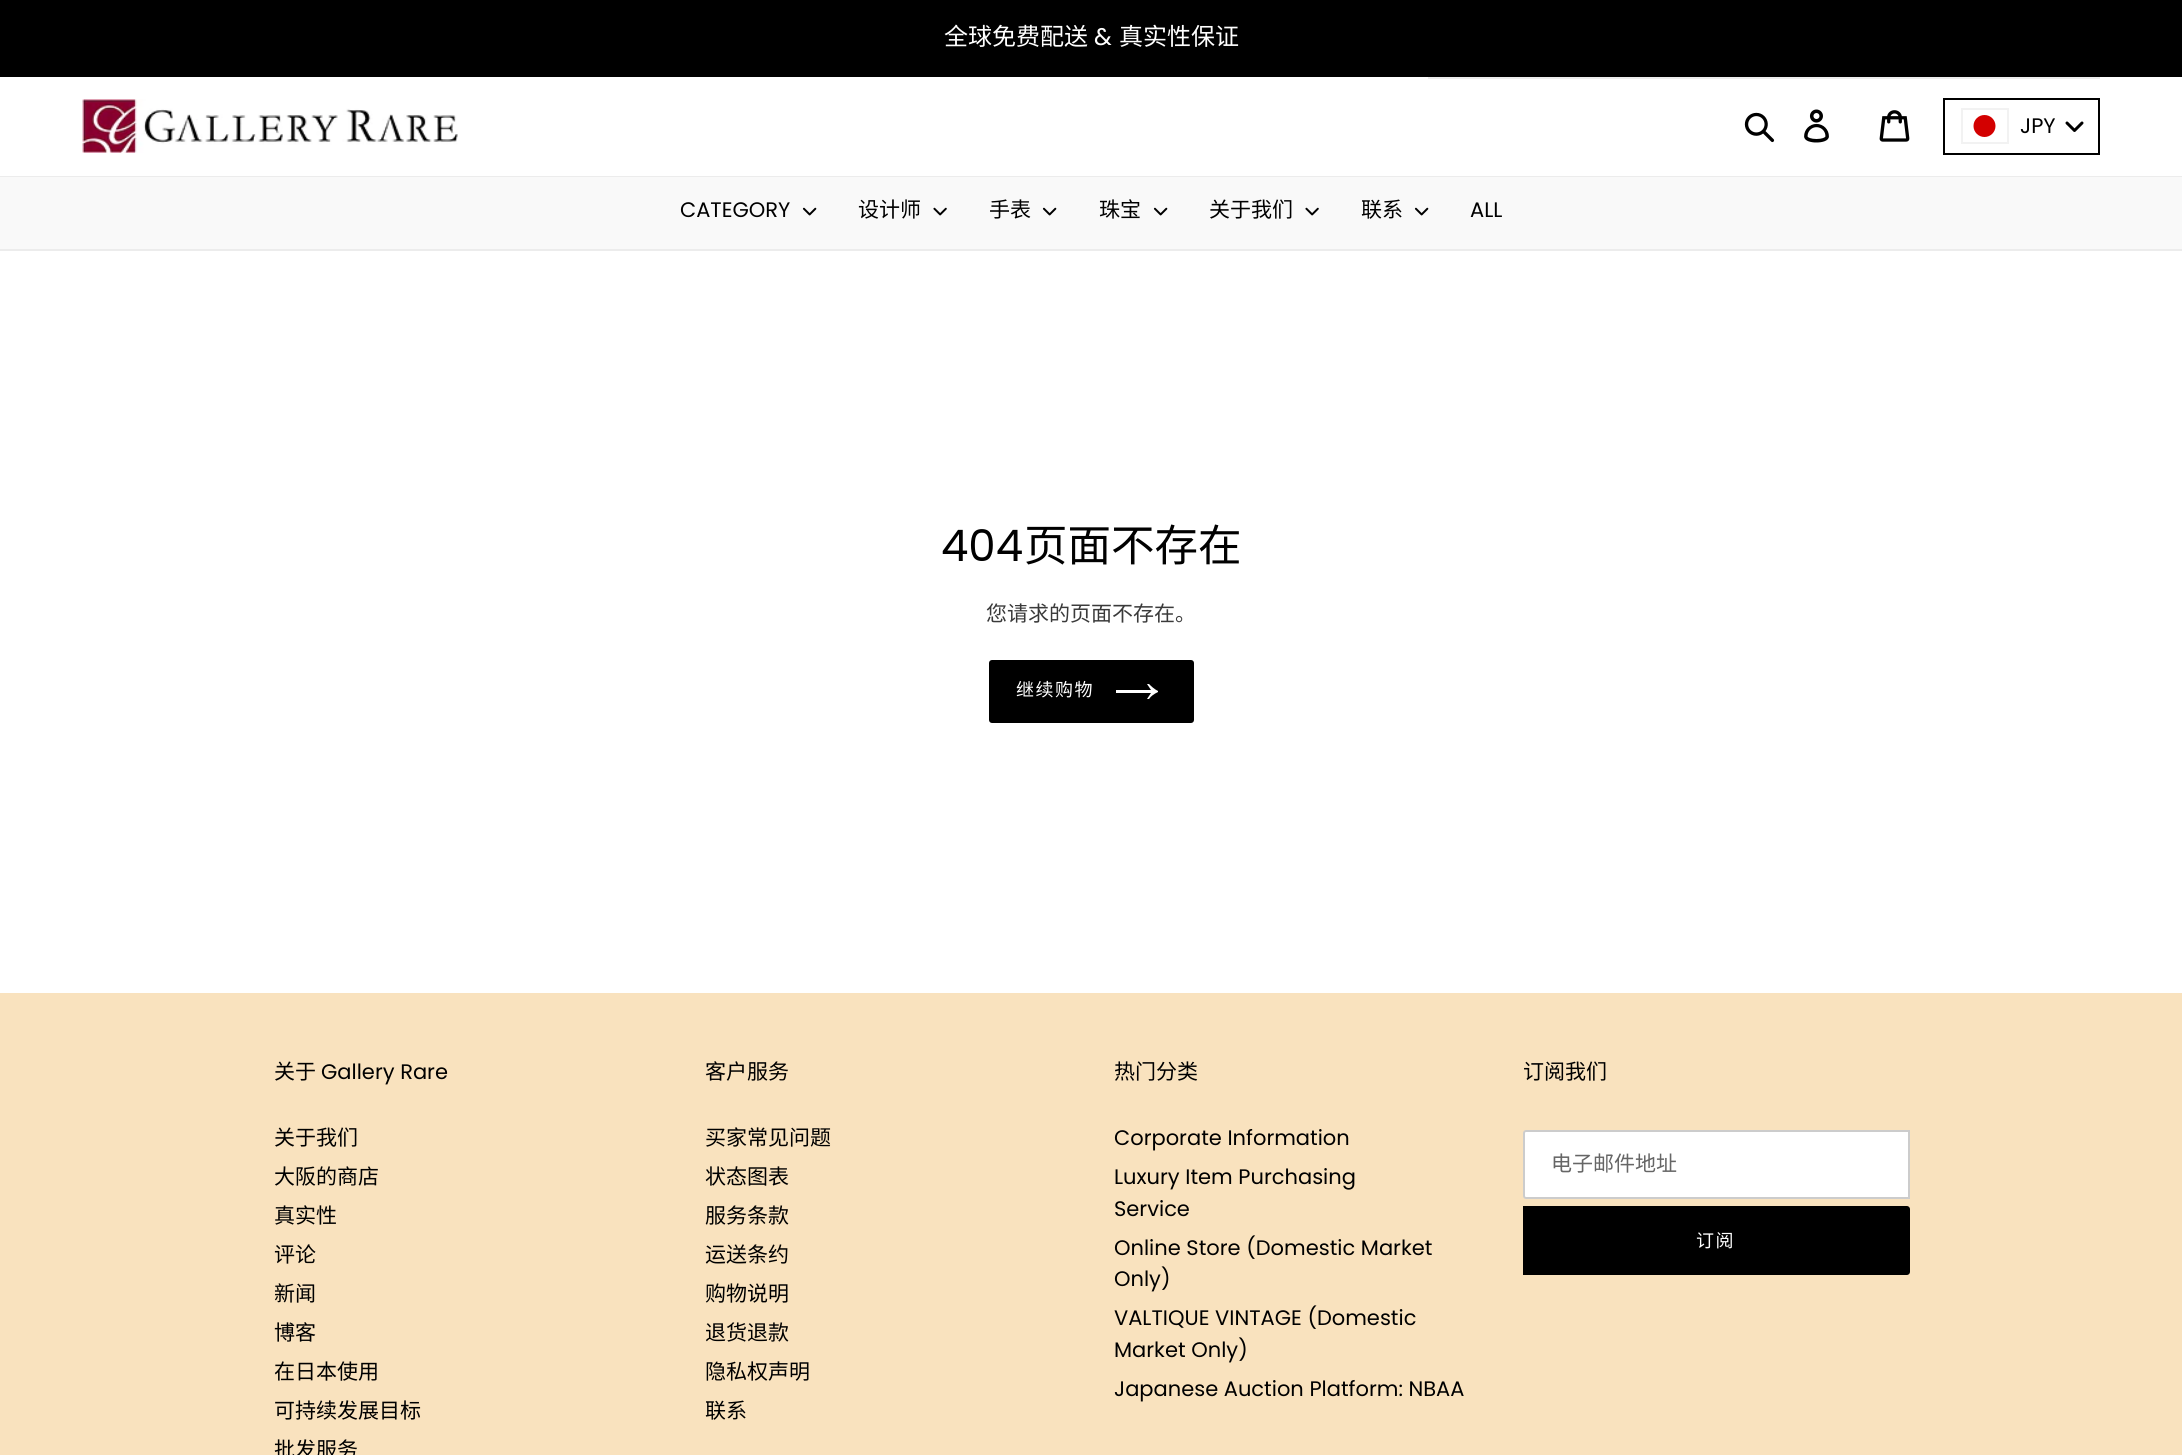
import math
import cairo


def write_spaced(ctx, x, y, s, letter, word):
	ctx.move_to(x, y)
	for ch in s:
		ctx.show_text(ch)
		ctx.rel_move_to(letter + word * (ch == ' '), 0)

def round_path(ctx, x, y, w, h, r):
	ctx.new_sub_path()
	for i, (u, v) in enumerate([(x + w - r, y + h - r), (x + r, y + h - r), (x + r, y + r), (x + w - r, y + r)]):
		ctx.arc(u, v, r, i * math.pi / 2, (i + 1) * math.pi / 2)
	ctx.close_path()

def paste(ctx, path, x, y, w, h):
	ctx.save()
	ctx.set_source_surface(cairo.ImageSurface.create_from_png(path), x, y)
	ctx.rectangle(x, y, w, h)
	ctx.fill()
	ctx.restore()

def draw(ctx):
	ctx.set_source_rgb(1, 1, 1)
	ctx.paint()
	ctx.set_source_rgb(0, 0, 0)
	ctx.rectangle(0, 0, 2182, 77)
	ctx.fill()
	ctx.select_font_face('Noto Sans CJK SC')
	ctx.set_font_size(24)
	ctx.set_source_rgb(1, 1, 1)
	ctx.move_to(944, 45)
	ctx.show_text('全球免费配送')
	ctx.select_font_face('Poppins')
	ctx.move_to(1094, 45)
	ctx.show_text('&')
	ctx.select_font_face('Noto Sans CJK SC')
	ctx.move_to(1119, 45)
	ctx.show_text('真实性保证')
	ctx.set_source_rgb(0.922, 0.922, 0.922)
	ctx.rectangle(0, 176, 2182, 1)
	ctx.fill()
	paste(ctx, 'media/1.png', 82, 99, 376, 54)
	ctx.rectangle(1428, 77, 672, 2)
	ctx.fill()
	paste(ctx, 'media/2.png', 1744, 112, 31, 31)
	paste(ctx, 'media/3.png', 1804, 109, 25, 34)
	paste(ctx, 'media/4.png', 1879, 110, 31, 32)
	ctx.rectangle(1944, 99, 155, 55)
	ctx.set_source_rgb(0, 0, 0)
	ctx.stroke()
	ctx.set_source_rgb(0.827, 0, 0)
	ctx.arc(1984.5, 126, 11, 0, 2 * math.pi)
	ctx.fill()
	ctx.rectangle(1962, 109, 46, 34)
	ctx.set_source_rgb(0.949, 0.949, 0.949)
	ctx.stroke()
	ctx.select_font_face('Poppins')
	ctx.set_font_size(21)
	ctx.set_source_rgb(0, 0, 0)
	ctx.move_to(2020, 133)
	ctx.show_text('JPY')
	paste(ctx, 'media/5.png', 2065, 121, 19, 11)
	ctx.set_source_rgb(0.922, 0.922, 0.922)
	ctx.rectangle(0, 249, 2182, 2)
	ctx.fill()
	ctx.set_source_rgb(0.976, 0.976, 0.976)
	ctx.rectangle(0, 177, 2182, 72)
	ctx.fill()
	ctx.set_source_rgb(0, 0, 0)
	ctx.move_to(680, 217)
	ctx.show_text('CATEGORY')
	paste(ctx, 'media/6.png', 802, 207, 15, 9)
	ctx.select_font_face('Noto Sans CJK SC')
	ctx.move_to(858, 217)
	ctx.show_text('设计师')
	paste(ctx, 'media/7.png', 933, 207, 14, 9)
	ctx.move_to(989, 217)
	ctx.show_text('手表')
	paste(ctx, 'media/6.png', 1042, 207, 15, 9)
	ctx.move_to(1099, 217)
	ctx.show_text('珠宝')
	paste(ctx, 'media/6.png', 1153, 207, 15, 9)
	ctx.move_to(1209, 217)
	ctx.show_text('关于我们')
	paste(ctx, 'media/7.png', 1305, 207, 14, 9)
	ctx.move_to(1361, 217)
	ctx.show_text('联系')
	paste(ctx, 'media/6.png', 1414, 207, 15, 9)
	ctx.select_font_face('Poppins')
	ctx.move_to(1470, 217)
	ctx.show_text('ALL')
	ctx.set_font_size(43.5)
	ctx.move_to(941, 561)
	ctx.show_text('404')
	ctx.select_font_face('Noto Sans CJK SC')
	ctx.move_to(1024, 561)
	ctx.show_text('页面不存在')
	ctx.set_font_size(21)
	ctx.set_source_rgb(0.227, 0.227, 0.227)
	ctx.move_to(986, 621)
	ctx.show_text('您请求的页面不存在。')
	ctx.set_source_rgb(0, 0, 0)
	round_path(ctx, 989, 660, 205, 63, 3)
	ctx.fill()
	ctx.set_font_size(18)
	ctx.set_source_rgb(1, 1, 1)
	write_spaced(ctx, 1016, 696, '继续购物', 1.5, 0)
	ctx.set_fill_rule(cairo.FILL_RULE_EVEN_ODD)
	ctx.new_path()
	ctx.move_to(1149, 684)
	ctx.curve_to(1151, 686, 1154, 689, 1158, 691)
	ctx.line_to(1158, 692)
	ctx.curve_to(1154, 694, 1151, 696, 1149, 699)
	ctx.line_to(1147, 699)
	ctx.line_to(1151, 693)
	ctx.line_to(1116, 693)
	ctx.line_to(1116, 690)
	ctx.line_to(1151, 690)
	ctx.line_to(1147, 684)
	ctx.close_path()
	ctx.fill()
	ctx.set_source_rgb(0.976, 0.886, 0.745)
	ctx.rectangle(0, 993, 2182, 462)
	ctx.fill()
	ctx.set_font_size(21)
	ctx.set_source_rgb(0, 0, 0)
	ctx.move_to(274, 1079)
	ctx.show_text('关于')
	ctx.select_font_face('Poppins')
	ctx.move_to(321, 1079)
	ctx.show_text('Gallery Rare')
	ctx.select_font_face('Noto Sans CJK SC')
	for x, y, s in [
		(274, 1145, '关于我们'),
		(274, 1184, '大阪的商店'),
		(274, 1223, '真实性'),
		(274, 1262, '评论'),
		(274, 1301, '新闻'),
		(274, 1340, '博客'),
		(274, 1379, '在日本使用'),
		(274, 1418, '可持续发展目标'),
		(274, 1457, '批发服务'),
		(705, 1079, '客户服务'),
		(705, 1145, '买家常见问题'),
		(705, 1184, '状态图表'),
		(705, 1223, '服务条款'),
		(705, 1262, '运送条约'),
		(705, 1301, '购物说明'),
		(705, 1340, '退货退款'),
		(705, 1379, '隐私权声明'),
		(705, 1418, '联系'),
		(1114, 1079, '热门分类'),
	]:
		ctx.move_to(x, y)
		ctx.show_text(s)
	ctx.select_font_face('Poppins')
	for x, y, s in [
		(1114, 1145, 'Corporate Information'),
		(1114, 1184, 'Luxury Item Purchasing'),
		(1114, 1216, 'Service'),
		(1114, 1255, 'Online Store (Domestic Market'),
		(1114, 1286, 'Only)'),
		(1114, 1325, 'VALTIQUE VINTAGE (Domestic'),
		(1114, 1357, 'Market Only)'),
		(1114, 1396, 'Japanese Auction Platform: NBAA'),
	]:
		ctx.move_to(x, y)
		ctx.show_text(s)
	ctx.select_font_face('Noto Sans CJK SC')
	ctx.move_to(1523, 1079)
	ctx.show_text('订阅我们')
	ctx.set_source_rgb(1, 1, 1)
	ctx.new_path()
	ctx.move_to(1526, 1131)
	ctx.line_to(1909, 1131)
	ctx.line_to(1909, 1198)
	ctx.line_to(1526, 1198)
	ctx.curve_to(1525, 1198, 1524, 1197, 1524, 1196)
	ctx.line_to(1524, 1133)
	ctx.curve_to(1524, 1132, 1525, 1131, 1526, 1131)
	ctx.close_path()
	ctx.fill_preserve()
	ctx.set_source_rgb(0.8, 0.8, 0.8)
	ctx.stroke()
	ctx.set_source_rgb(0.4, 0.4, 0.4)
	ctx.move_to(1551, 1171)
	ctx.show_text('电子邮件地址')
	ctx.set_source_rgb(0, 0, 0)
	ctx.new_path()
	ctx.move_to(1523, 1206)
	ctx.line_to(1907, 1206)
	ctx.curve_to(1908.5, 1206, 1910, 1207.5, 1910, 1209)
	ctx.line_to(1910, 1272)
	ctx.curve_to(1910, 1273.5, 1908.5, 1275, 1907, 1275)
	ctx.line_to(1523, 1275)
	ctx.close_path()
	ctx.fill()
	ctx.set_font_size(18)
	ctx.set_source_rgb(1, 1, 1)
	write_spaced(ctx, 1696, 1247, '订阅', 1.5, 0)


surface = cairo.ImageSurface(cairo.FORMAT_RGB24, 2182, 1455)
ctx = cairo.Context(surface)
options = cairo.FontOptions()
options.set_hint_metrics(cairo.HINT_METRICS_OFF)
options.set_hint_style(cairo.HINT_STYLE_NONE)
ctx.set_font_options(options)
ctx.set_miter_limit(4)
draw(ctx)
surface.write_to_png('image.png')
